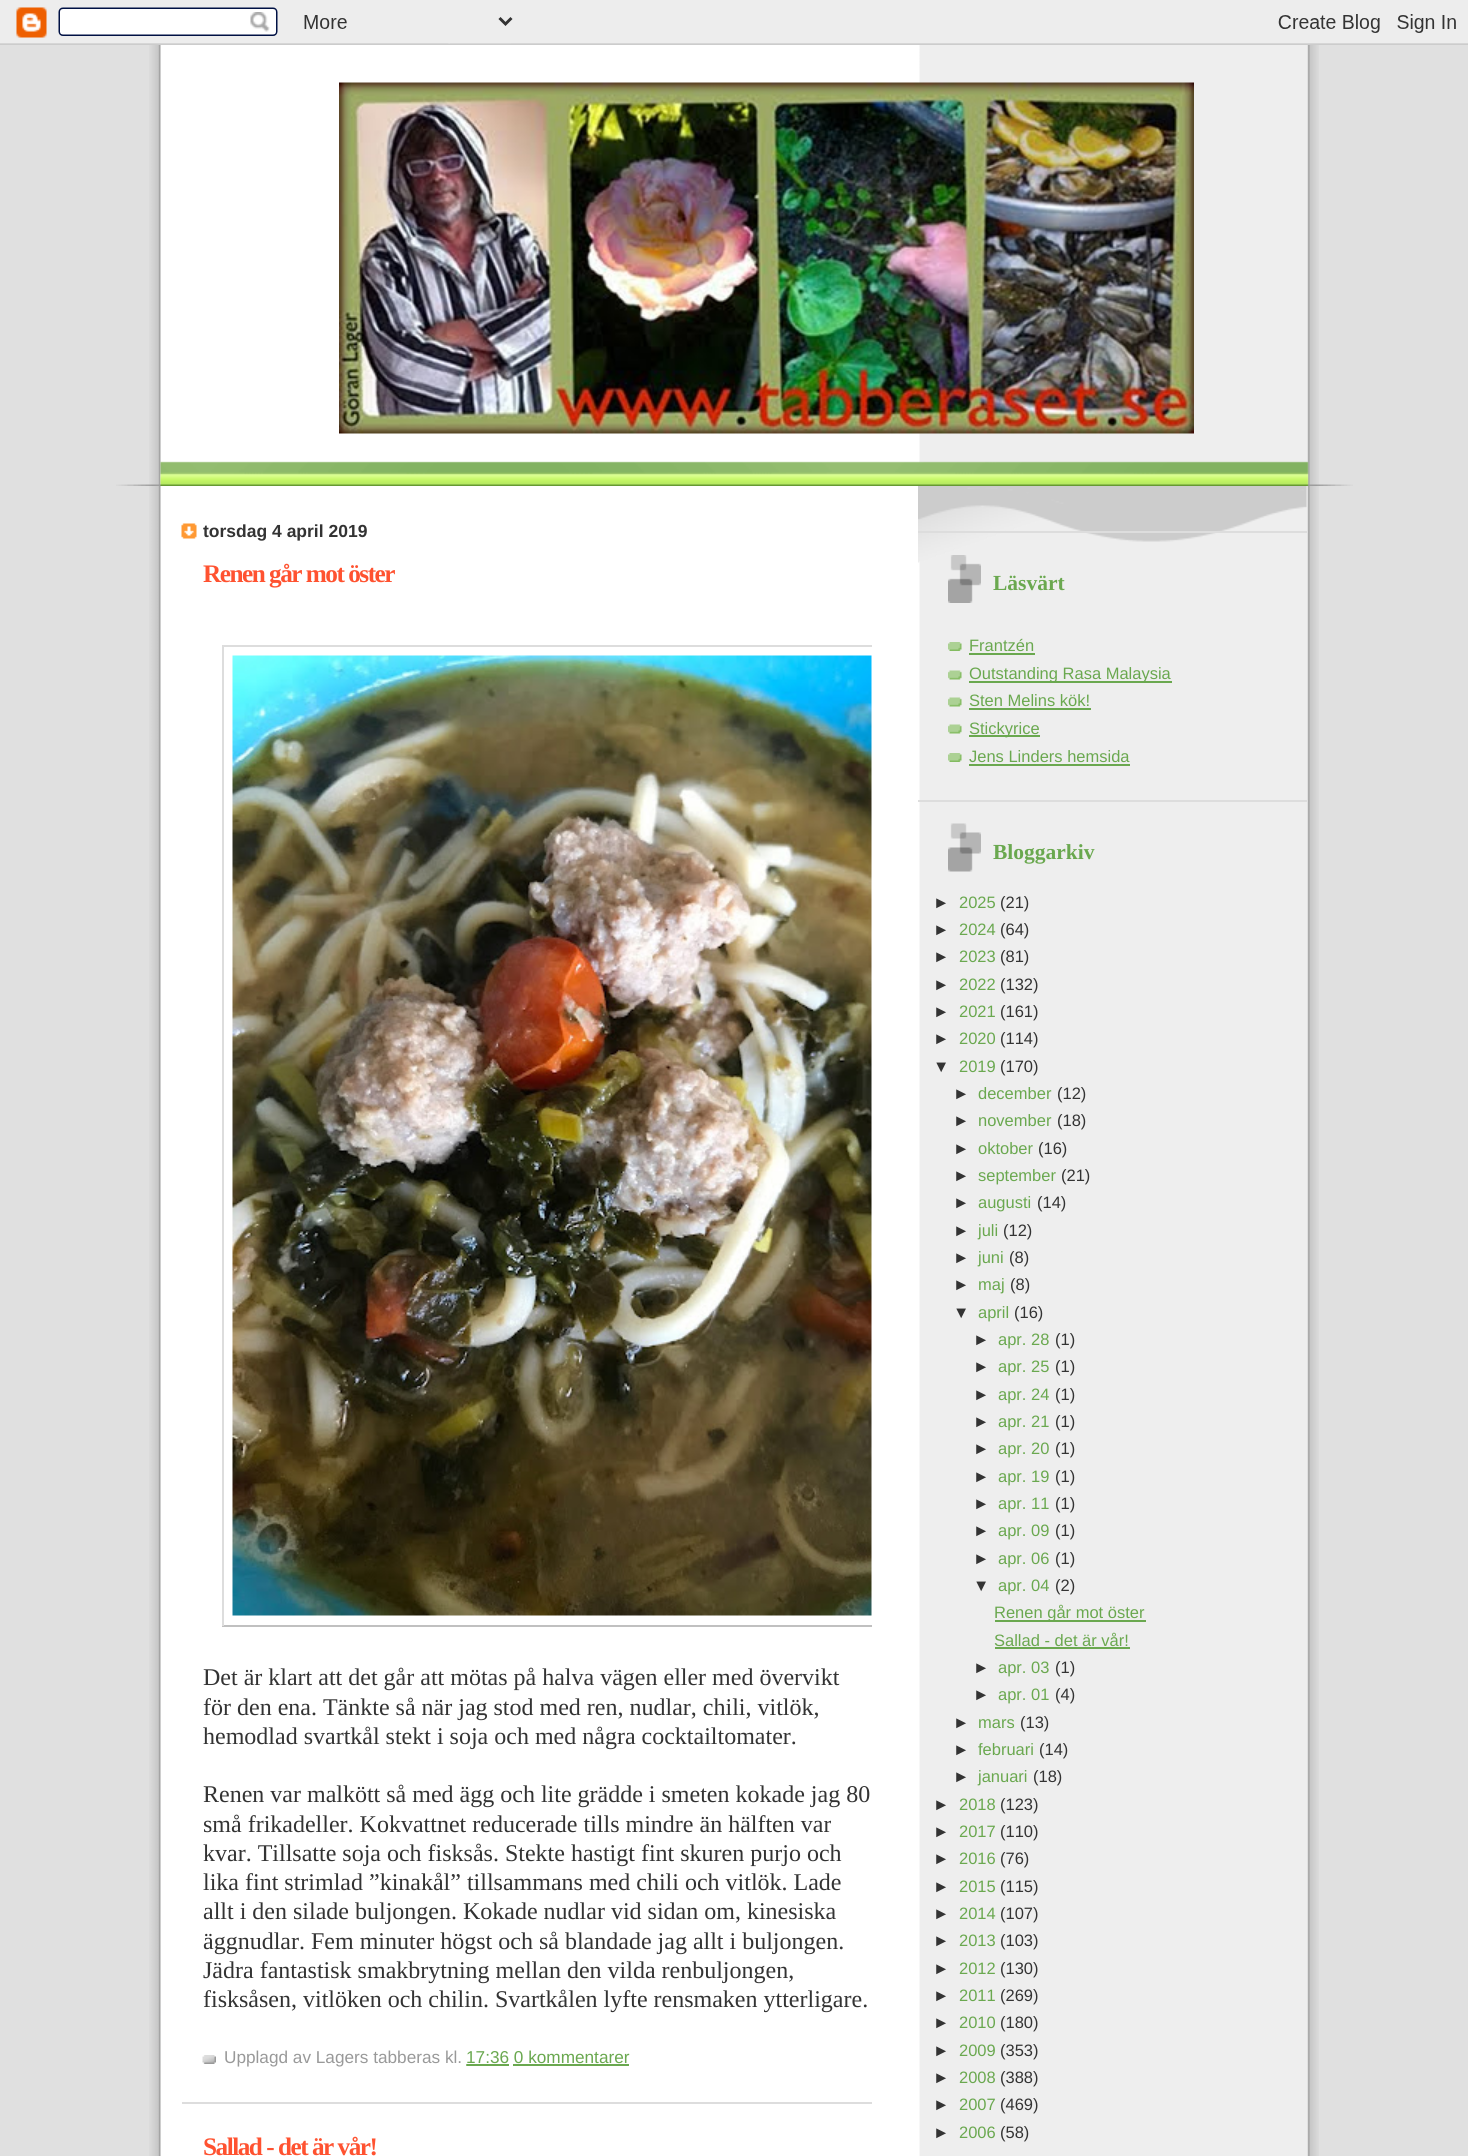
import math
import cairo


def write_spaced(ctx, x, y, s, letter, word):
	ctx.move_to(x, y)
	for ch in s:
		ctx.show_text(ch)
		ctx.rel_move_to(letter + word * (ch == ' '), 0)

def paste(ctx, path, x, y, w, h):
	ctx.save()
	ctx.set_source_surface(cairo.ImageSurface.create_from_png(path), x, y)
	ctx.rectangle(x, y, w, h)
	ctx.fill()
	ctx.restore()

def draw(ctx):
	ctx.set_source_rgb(0.878, 0.878, 0.878)
	ctx.paint()
	paste(ctx, 'media/1.png', 0, 0, 1468, 45)
	paste(ctx, 'media/2.png', 149, 45, 1170, 2111)
	paste(ctx, 'media/3.png', 116, 461, 1237, 25)
	paste(ctx, 'media/4.png', 339, 82, 855, 352)
	paste(ctx, 'media/5.png', 181, 523, 16, 16)
	ctx.select_font_face('Liberation Sans', cairo.FONT_SLANT_NORMAL, cairo.FONT_WEIGHT_BOLD)
	ctx.set_font_size(17.5)
	ctx.set_source_rgb(0.2, 0.2, 0.2)
	ctx.move_to(203, 537)
	ctx.show_text('torsdag 4 april 2019')
	ctx.set_source_rgb(0.867, 0.867, 0.867)
	ctx.rectangle(182, 2102, 690, 2)
	ctx.fill()
	ctx.select_font_face('Liberation Serif', cairo.FONT_SLANT_NORMAL, cairo.FONT_WEIGHT_BOLD)
	ctx.set_font_size(25.25)
	ctx.set_source_rgb(1, 0.322, 0.188)
	write_spaced(ctx, 203, 582, 'Renen går mot öster', -1.5, 0)
	ctx.set_source_rgb(0.867, 0.867, 0.867)
	ctx.rectangle(222, 645, 650, 2)
	ctx.fill()
	ctx.set_source_rgb(0.753, 0.753, 0.753)
	ctx.rectangle(222, 1625, 650, 2)
	ctx.fill()
	ctx.set_source_rgb(0.867, 0.867, 0.867)
	ctx.rectangle(222, 645, 2, 981)
	ctx.fill()
	paste(ctx, 'media/6.png', 232, 655, 640, 961)
	ctx.select_font_face('Liberation Serif')
	ctx.set_font_size(24)
	ctx.set_source_rgb(0.2, 0.2, 0.2)
	for x, y, s in [
		(203, 1685, 'Det är klart att det går att mötas på halva vägen eller med övervikt'),
		(203, 1715, 'för den ena. Tänkte så när jag stod med ren, nudlar, chili, vitlök,'),
		(203, 1744, 'hemodlad svartkål stekt i soja och med några cocktailtomater.'),
		(203, 1802, 'Renen var malkött så med ägg och lite grädde i smeten kokade jag 80'),
		(203, 1832, 'små frikadeller. Kokvattnet reducerade tills mindre än hälften var'),
		(203, 1861, 'kvar. Tillsatte soja och fisksås. Stekte hastigt fint skuren purjo och'),
		(203, 1890, 'lika fint strimlad ”kinakål” tillsammans med chili och vitlök. Lade'),
		(203, 1919, 'allt i den silade buljongen. Kokade nudlar vid sidan om, kinesiska'),
		(203, 1949, 'äggnudlar. Fem minuter högst och så blandade jag allt i buljongen.'),
		(203, 1978, 'Jädra fantastisk smakbrytning mellan den vilda renbuljongen,'),
		(203, 2007, 'fisksåsen, vitlöken och chilin. Svartkålen lyfte rensmaken ytterligare.'),
	]:
		ctx.move_to(x, y)
		ctx.show_text(s)
	paste(ctx, 'media/7.png', 202, 2055, 14, 9)
	ctx.select_font_face('Liberation Sans')
	ctx.set_font_size(17.2)
	ctx.set_source_rgb(0.6, 0.6, 0.6)
	ctx.move_to(224, 2063)
	ctx.show_text('Upplagd av Lagers tabberas kl.')
	ctx.set_source_rgb(0.416, 0.659, 0.31)
	ctx.move_to(466, 2063)
	ctx.show_text('17:36 0 kommentarer')
	ctx.new_path()
	ctx.move_to(466, 2065)
	ctx.line_to(508.5, 2065)
	ctx.set_line_width(1.5)
	ctx.set_dash([1.5, 1.5])
	ctx.stroke()
	ctx.rectangle(467, 2064, 42, 2)
	ctx.fill()
	ctx.rectangle(513, 2064, 116, 2)
	ctx.fill()
	ctx.select_font_face('Liberation Serif', cairo.FONT_SLANT_NORMAL, cairo.FONT_WEIGHT_BOLD)
	ctx.set_font_size(25.25)
	ctx.set_source_rgb(1, 0.322, 0.188)
	write_spaced(ctx, 203, 2155, 'Sallad - det är vår!', -1.5, 0)
	paste(ctx, 'media/8.png', 918, 486, 389, 77)
	ctx.set_source_rgb(0.867, 0.867, 0.867)
	ctx.rectangle(918, 531, 389, 2)
	ctx.fill()
	ctx.rectangle(918, 800, 389, 2)
	ctx.fill()
	paste(ctx, 'media/9.png', 948, 555, 33, 48)
	ctx.set_font_size(21.5)
	ctx.set_source_rgb(0.416, 0.659, 0.31)
	ctx.move_to(993, 590)
	ctx.show_text('Läsvärt')
	paste(ctx, 'media/10.png', 948, 642, 14, 9)
	ctx.select_font_face('Liberation Sans')
	ctx.set_font_size(16.5)
	ctx.move_to(969, 651)
	ctx.show_text('Frantzén')
	ctx.rectangle(969, 653, 66, 2)
	ctx.fill()
	paste(ctx, 'media/11.png', 948, 670, 14, 10)
	ctx.rectangle(969, 681, 203, 2)
	ctx.fill()
	ctx.move_to(969, 679)
	ctx.show_text('Outstanding Rasa Malaysia')
	paste(ctx, 'media/11.png', 948, 697, 14, 10)
	ctx.move_to(969, 706)
	ctx.show_text('Sten Melins kök!')
	ctx.rectangle(969, 708, 122, 2)
	ctx.fill()
	paste(ctx, 'media/11.png', 948, 724, 14, 10)
	ctx.rectangle(969, 735, 71, 2)
	ctx.fill()
	ctx.move_to(969, 734)
	ctx.show_text('Stickyrice')
	paste(ctx, 'media/10.png', 948, 753, 14, 9)
	ctx.move_to(969, 762)
	ctx.show_text('Jens Linders hemsida')
	ctx.rectangle(969, 764, 161, 2)
	ctx.fill()
	paste(ctx, 'media/12.png', 948, 823, 33, 49)
	ctx.select_font_face('Liberation Serif', cairo.FONT_SLANT_NORMAL, cairo.FONT_WEIGHT_BOLD)
	ctx.set_font_size(21.5)
	ctx.move_to(993, 859)
	ctx.show_text('Bloggarkiv')
	ctx.select_font_face('Liberation Sans')
	ctx.set_font_size(16.5)
	ctx.set_source_rgb(0.2, 0.2, 0.2)
	ctx.move_to(933, 908)
	ctx.show_text('►')
	ctx.set_source_rgb(0.416, 0.659, 0.31)
	ctx.move_to(959, 908)
	ctx.show_text('2025')
	ctx.set_source_rgb(0.2, 0.2, 0.2)
	ctx.move_to(1000, 908)
	ctx.show_text('(21)')
	ctx.move_to(933, 935)
	ctx.show_text('►')
	ctx.set_source_rgb(0.416, 0.659, 0.31)
	ctx.move_to(959, 935)
	ctx.show_text('2024')
	ctx.set_source_rgb(0.2, 0.2, 0.2)
	ctx.move_to(1000, 935)
	ctx.show_text('(64)')
	ctx.move_to(933, 962)
	ctx.show_text('►')
	ctx.set_source_rgb(0.416, 0.659, 0.31)
	ctx.move_to(959, 962)
	ctx.show_text('2023')
	ctx.set_source_rgb(0.2, 0.2, 0.2)
	ctx.move_to(1000, 962)
	ctx.show_text('(81)')
	ctx.move_to(933, 990)
	ctx.show_text('►')
	ctx.set_source_rgb(0.416, 0.659, 0.31)
	ctx.move_to(959, 990)
	ctx.show_text('2022')
	ctx.set_source_rgb(0.2, 0.2, 0.2)
	ctx.move_to(1000, 990)
	ctx.show_text('(132)')
	ctx.move_to(933, 1017)
	ctx.show_text('►')
	ctx.set_source_rgb(0.416, 0.659, 0.31)
	ctx.move_to(959, 1017)
	ctx.show_text('2021')
	ctx.set_source_rgb(0.2, 0.2, 0.2)
	ctx.move_to(1000, 1017)
	ctx.show_text('(161)')
	ctx.move_to(933, 1044)
	ctx.show_text('►')
	ctx.set_source_rgb(0.416, 0.659, 0.31)
	ctx.move_to(959, 1044)
	ctx.show_text('2020')
	ctx.set_source_rgb(0.2, 0.2, 0.2)
	ctx.move_to(1000, 1044)
	ctx.show_text('(114)')
	ctx.move_to(933, 1072)
	ctx.show_text('▼')
	ctx.set_source_rgb(0.416, 0.659, 0.31)
	ctx.move_to(959, 1072)
	ctx.show_text('2019')
	ctx.set_source_rgb(0.2, 0.2, 0.2)
	ctx.move_to(1000, 1072)
	ctx.show_text('(170)')
	ctx.move_to(953, 1099)
	ctx.show_text('►')
	ctx.set_source_rgb(0.416, 0.659, 0.31)
	ctx.move_to(978, 1099)
	ctx.show_text('december')
	ctx.set_source_rgb(0.2, 0.2, 0.2)
	ctx.move_to(1057, 1099)
	ctx.show_text('(12)')
	ctx.move_to(953, 1126)
	ctx.show_text('►')
	ctx.set_source_rgb(0.416, 0.659, 0.31)
	ctx.move_to(978, 1126)
	ctx.show_text('november')
	ctx.set_source_rgb(0.2, 0.2, 0.2)
	ctx.move_to(1057, 1126)
	ctx.show_text('(18)')
	ctx.move_to(953, 1154)
	ctx.show_text('►')
	ctx.set_source_rgb(0.416, 0.659, 0.31)
	ctx.move_to(978, 1154)
	ctx.show_text('oktober')
	ctx.set_source_rgb(0.2, 0.2, 0.2)
	ctx.move_to(1038, 1154)
	ctx.show_text('(16)')
	ctx.move_to(953, 1181)
	ctx.show_text('►')
	ctx.set_source_rgb(0.416, 0.659, 0.31)
	ctx.move_to(978, 1181)
	ctx.show_text('september')
	ctx.set_source_rgb(0.2, 0.2, 0.2)
	ctx.move_to(1061, 1181)
	ctx.show_text('(21)')
	ctx.move_to(953, 1208)
	ctx.show_text('►')
	ctx.set_source_rgb(0.416, 0.659, 0.31)
	ctx.move_to(978, 1208)
	ctx.show_text('augusti')
	ctx.set_source_rgb(0.2, 0.2, 0.2)
	ctx.move_to(1037, 1208)
	ctx.show_text('(14)')
	ctx.move_to(953, 1236)
	ctx.show_text('►')
	ctx.set_source_rgb(0.416, 0.659, 0.31)
	ctx.move_to(978, 1236)
	ctx.show_text('juli')
	ctx.set_source_rgb(0.2, 0.2, 0.2)
	ctx.move_to(1003, 1236)
	ctx.show_text('(12)')
	ctx.move_to(953, 1263)
	ctx.show_text('►')
	ctx.set_source_rgb(0.416, 0.659, 0.31)
	ctx.move_to(978, 1263)
	ctx.show_text('juni')
	ctx.set_source_rgb(0.2, 0.2, 0.2)
	ctx.move_to(1009, 1263)
	ctx.show_text('(8)')
	ctx.move_to(953, 1290)
	ctx.show_text('►')
	ctx.set_source_rgb(0.416, 0.659, 0.31)
	ctx.move_to(978, 1290)
	ctx.show_text('maj')
	ctx.set_source_rgb(0.2, 0.2, 0.2)
	ctx.move_to(1010, 1290)
	ctx.show_text('(8)')
	ctx.move_to(953, 1318)
	ctx.show_text('▼')
	ctx.set_source_rgb(0.416, 0.659, 0.31)
	ctx.move_to(978, 1318)
	ctx.show_text('april')
	ctx.set_source_rgb(0.2, 0.2, 0.2)
	ctx.move_to(1014, 1318)
	ctx.show_text('(16)')
	ctx.move_to(973, 1345)
	ctx.show_text('►')
	ctx.set_source_rgb(0.416, 0.659, 0.31)
	ctx.move_to(998, 1345)
	ctx.show_text('apr. 28')
	ctx.set_source_rgb(0.2, 0.2, 0.2)
	ctx.move_to(1055, 1345)
	ctx.show_text('(1)')
	ctx.move_to(973, 1372)
	ctx.show_text('►')
	ctx.set_source_rgb(0.416, 0.659, 0.31)
	ctx.move_to(998, 1372)
	ctx.show_text('apr. 25')
	ctx.set_source_rgb(0.2, 0.2, 0.2)
	ctx.move_to(1055, 1372)
	ctx.show_text('(1)')
	ctx.move_to(973, 1400)
	ctx.show_text('►')
	ctx.set_source_rgb(0.416, 0.659, 0.31)
	ctx.move_to(998, 1400)
	ctx.show_text('apr. 24')
	ctx.set_source_rgb(0.2, 0.2, 0.2)
	ctx.move_to(1055, 1400)
	ctx.show_text('(1)')
	ctx.move_to(973, 1427)
	ctx.show_text('►')
	ctx.set_source_rgb(0.416, 0.659, 0.31)
	ctx.move_to(998, 1427)
	ctx.show_text('apr. 21')
	ctx.set_source_rgb(0.2, 0.2, 0.2)
	ctx.move_to(1055, 1427)
	ctx.show_text('(1)')
	ctx.move_to(973, 1454)
	ctx.show_text('►')
	ctx.set_source_rgb(0.416, 0.659, 0.31)
	ctx.move_to(998, 1454)
	ctx.show_text('apr. 20')
	ctx.set_source_rgb(0.2, 0.2, 0.2)
	ctx.move_to(1055, 1454)
	ctx.show_text('(1)')
	ctx.move_to(973, 1482)
	ctx.show_text('►')
	ctx.set_source_rgb(0.416, 0.659, 0.31)
	ctx.move_to(998, 1482)
	ctx.show_text('apr. 19')
	ctx.set_source_rgb(0.2, 0.2, 0.2)
	ctx.move_to(1055, 1482)
	ctx.show_text('(1)')
	ctx.move_to(973, 1509)
	ctx.show_text('►')
	ctx.set_source_rgb(0.416, 0.659, 0.31)
	ctx.move_to(998, 1509)
	ctx.show_text('apr. 11')
	ctx.set_source_rgb(0.2, 0.2, 0.2)
	ctx.move_to(1055, 1509)
	ctx.show_text('(1)')
	ctx.move_to(973, 1536)
	ctx.show_text('►')
	ctx.set_source_rgb(0.416, 0.659, 0.31)
	ctx.move_to(998, 1536)
	ctx.show_text('apr. 09')
	ctx.set_source_rgb(0.2, 0.2, 0.2)
	ctx.move_to(1055, 1536)
	ctx.show_text('(1)')
	ctx.move_to(973, 1564)
	ctx.show_text('►')
	ctx.set_source_rgb(0.416, 0.659, 0.31)
	ctx.move_to(998, 1564)
	ctx.show_text('apr. 06')
	ctx.set_source_rgb(0.2, 0.2, 0.2)
	ctx.move_to(1055, 1564)
	ctx.show_text('(1)')
	ctx.move_to(973, 1591)
	ctx.show_text('▼')
	ctx.set_source_rgb(0.416, 0.659, 0.31)
	ctx.move_to(998, 1591)
	ctx.show_text('apr. 04')
	ctx.set_source_rgb(0.2, 0.2, 0.2)
	ctx.move_to(1055, 1591)
	ctx.show_text('(2)')
	ctx.set_source_rgb(0.416, 0.659, 0.31)
	ctx.rectangle(995, 1620, 151, 2)
	ctx.fill()
	ctx.move_to(994, 1618)
	ctx.show_text('Renen går mot öster')
	ctx.move_to(994, 1646)
	ctx.show_text('Sallad - det är vår!')
	ctx.rectangle(995, 1647, 135, 2)
	ctx.fill()
	ctx.set_source_rgb(0.2, 0.2, 0.2)
	ctx.move_to(973, 1673)
	ctx.show_text('►')
	ctx.set_source_rgb(0.416, 0.659, 0.31)
	ctx.move_to(998, 1673)
	ctx.show_text('apr. 03')
	ctx.set_source_rgb(0.2, 0.2, 0.2)
	ctx.move_to(1055, 1673)
	ctx.show_text('(1)')
	ctx.move_to(973, 1700)
	ctx.show_text('►')
	ctx.set_source_rgb(0.416, 0.659, 0.31)
	ctx.move_to(998, 1700)
	ctx.show_text('apr. 01')
	ctx.set_source_rgb(0.2, 0.2, 0.2)
	ctx.move_to(1055, 1700)
	ctx.show_text('(4)')
	ctx.move_to(953, 1728)
	ctx.show_text('►')
	ctx.set_source_rgb(0.416, 0.659, 0.31)
	ctx.move_to(978, 1728)
	ctx.show_text('mars')
	ctx.set_source_rgb(0.2, 0.2, 0.2)
	ctx.move_to(1020, 1728)
	ctx.show_text('(13)')
	ctx.move_to(953, 1755)
	ctx.show_text('►')
	ctx.set_source_rgb(0.416, 0.659, 0.31)
	ctx.move_to(978, 1755)
	ctx.show_text('februari')
	ctx.set_source_rgb(0.2, 0.2, 0.2)
	ctx.move_to(1039, 1755)
	ctx.show_text('(14)')
	ctx.move_to(953, 1782)
	ctx.show_text('►')
	ctx.set_source_rgb(0.416, 0.659, 0.31)
	ctx.move_to(978, 1782)
	ctx.show_text('januari')
	ctx.set_source_rgb(0.2, 0.2, 0.2)
	ctx.move_to(1033, 1782)
	ctx.show_text('(18)')
	ctx.move_to(933, 1810)
	ctx.show_text('►')
	ctx.set_source_rgb(0.416, 0.659, 0.31)
	ctx.move_to(959, 1810)
	ctx.show_text('2018')
	ctx.set_source_rgb(0.2, 0.2, 0.2)
	ctx.move_to(1000, 1810)
	ctx.show_text('(123)')
	ctx.move_to(933, 1837)
	ctx.show_text('►')
	ctx.set_source_rgb(0.416, 0.659, 0.31)
	ctx.move_to(959, 1837)
	ctx.show_text('2017')
	ctx.set_source_rgb(0.2, 0.2, 0.2)
	ctx.move_to(1000, 1837)
	ctx.show_text('(110)')
	ctx.move_to(933, 1864)
	ctx.show_text('►')
	ctx.set_source_rgb(0.416, 0.659, 0.31)
	ctx.move_to(959, 1864)
	ctx.show_text('2016')
	ctx.set_source_rgb(0.2, 0.2, 0.2)
	ctx.move_to(1000, 1864)
	ctx.show_text('(76)')
	ctx.move_to(933, 1892)
	ctx.show_text('►')
	ctx.set_source_rgb(0.416, 0.659, 0.31)
	ctx.move_to(959, 1892)
	ctx.show_text('2015')
	ctx.set_source_rgb(0.2, 0.2, 0.2)
	ctx.move_to(1000, 1892)
	ctx.show_text('(115)')
	ctx.move_to(933, 1919)
	ctx.show_text('►')
	ctx.set_source_rgb(0.416, 0.659, 0.31)
	ctx.move_to(959, 1919)
	ctx.show_text('2014')
	ctx.set_source_rgb(0.2, 0.2, 0.2)
	ctx.move_to(1000, 1919)
	ctx.show_text('(107)')
	ctx.move_to(933, 1946)
	ctx.show_text('►')
	ctx.set_source_rgb(0.416, 0.659, 0.31)
	ctx.move_to(959, 1946)
	ctx.show_text('2013')
	ctx.set_source_rgb(0.2, 0.2, 0.2)
	ctx.move_to(1000, 1946)
	ctx.show_text('(103)')
	ctx.move_to(933, 1974)
	ctx.show_text('►')
	ctx.set_source_rgb(0.416, 0.659, 0.31)
	ctx.move_to(959, 1974)
	ctx.show_text('2012')
	ctx.set_source_rgb(0.2, 0.2, 0.2)
	ctx.move_to(1000, 1974)
	ctx.show_text('(130)')
	ctx.move_to(933, 2001)
	ctx.show_text('►')
	ctx.set_source_rgb(0.416, 0.659, 0.31)
	ctx.move_to(959, 2001)
	ctx.show_text('2011')
	ctx.set_source_rgb(0.2, 0.2, 0.2)
	ctx.move_to(1000, 2001)
	ctx.show_text('(269)')
	ctx.move_to(933, 2028)
	ctx.show_text('►')
	ctx.set_source_rgb(0.416, 0.659, 0.31)
	ctx.move_to(959, 2028)
	ctx.show_text('2010')
	ctx.set_source_rgb(0.2, 0.2, 0.2)
	ctx.move_to(1000, 2028)
	ctx.show_text('(180)')
	ctx.move_to(933, 2056)
	ctx.show_text('►')
	ctx.set_source_rgb(0.416, 0.659, 0.31)
	ctx.move_to(959, 2056)
	ctx.show_text('2009')
	ctx.set_source_rgb(0.2, 0.2, 0.2)
	ctx.move_to(1000, 2056)
	ctx.show_text('(353)')
	ctx.move_to(933, 2083)
	ctx.show_text('►')
	ctx.set_source_rgb(0.416, 0.659, 0.31)
	ctx.move_to(959, 2083)
	ctx.show_text('2008')
	ctx.set_source_rgb(0.2, 0.2, 0.2)
	ctx.move_to(1000, 2083)
	ctx.show_text('(388)')
	ctx.move_to(933, 2110)
	ctx.show_text('►')
	ctx.set_source_rgb(0.416, 0.659, 0.31)
	ctx.move_to(959, 2110)
	ctx.show_text('2007')
	ctx.set_source_rgb(0.2, 0.2, 0.2)
	ctx.move_to(1000, 2110)
	ctx.show_text('(469)')
	ctx.move_to(933, 2138)
	ctx.show_text('►')
	ctx.set_source_rgb(0.416, 0.659, 0.31)
	ctx.move_to(959, 2138)
	ctx.show_text('2006')
	ctx.set_source_rgb(0.2, 0.2, 0.2)
	ctx.move_to(1000, 2138)
	ctx.show_text('(58)')


surface = cairo.ImageSurface(cairo.FORMAT_RGB24, 1468, 2156)
ctx = cairo.Context(surface)
options = cairo.FontOptions()
options.set_hint_metrics(cairo.HINT_METRICS_OFF)
options.set_hint_style(cairo.HINT_STYLE_NONE)
ctx.set_font_options(options)
ctx.set_miter_limit(4)
draw(ctx)
surface.write_to_png('image.png')
